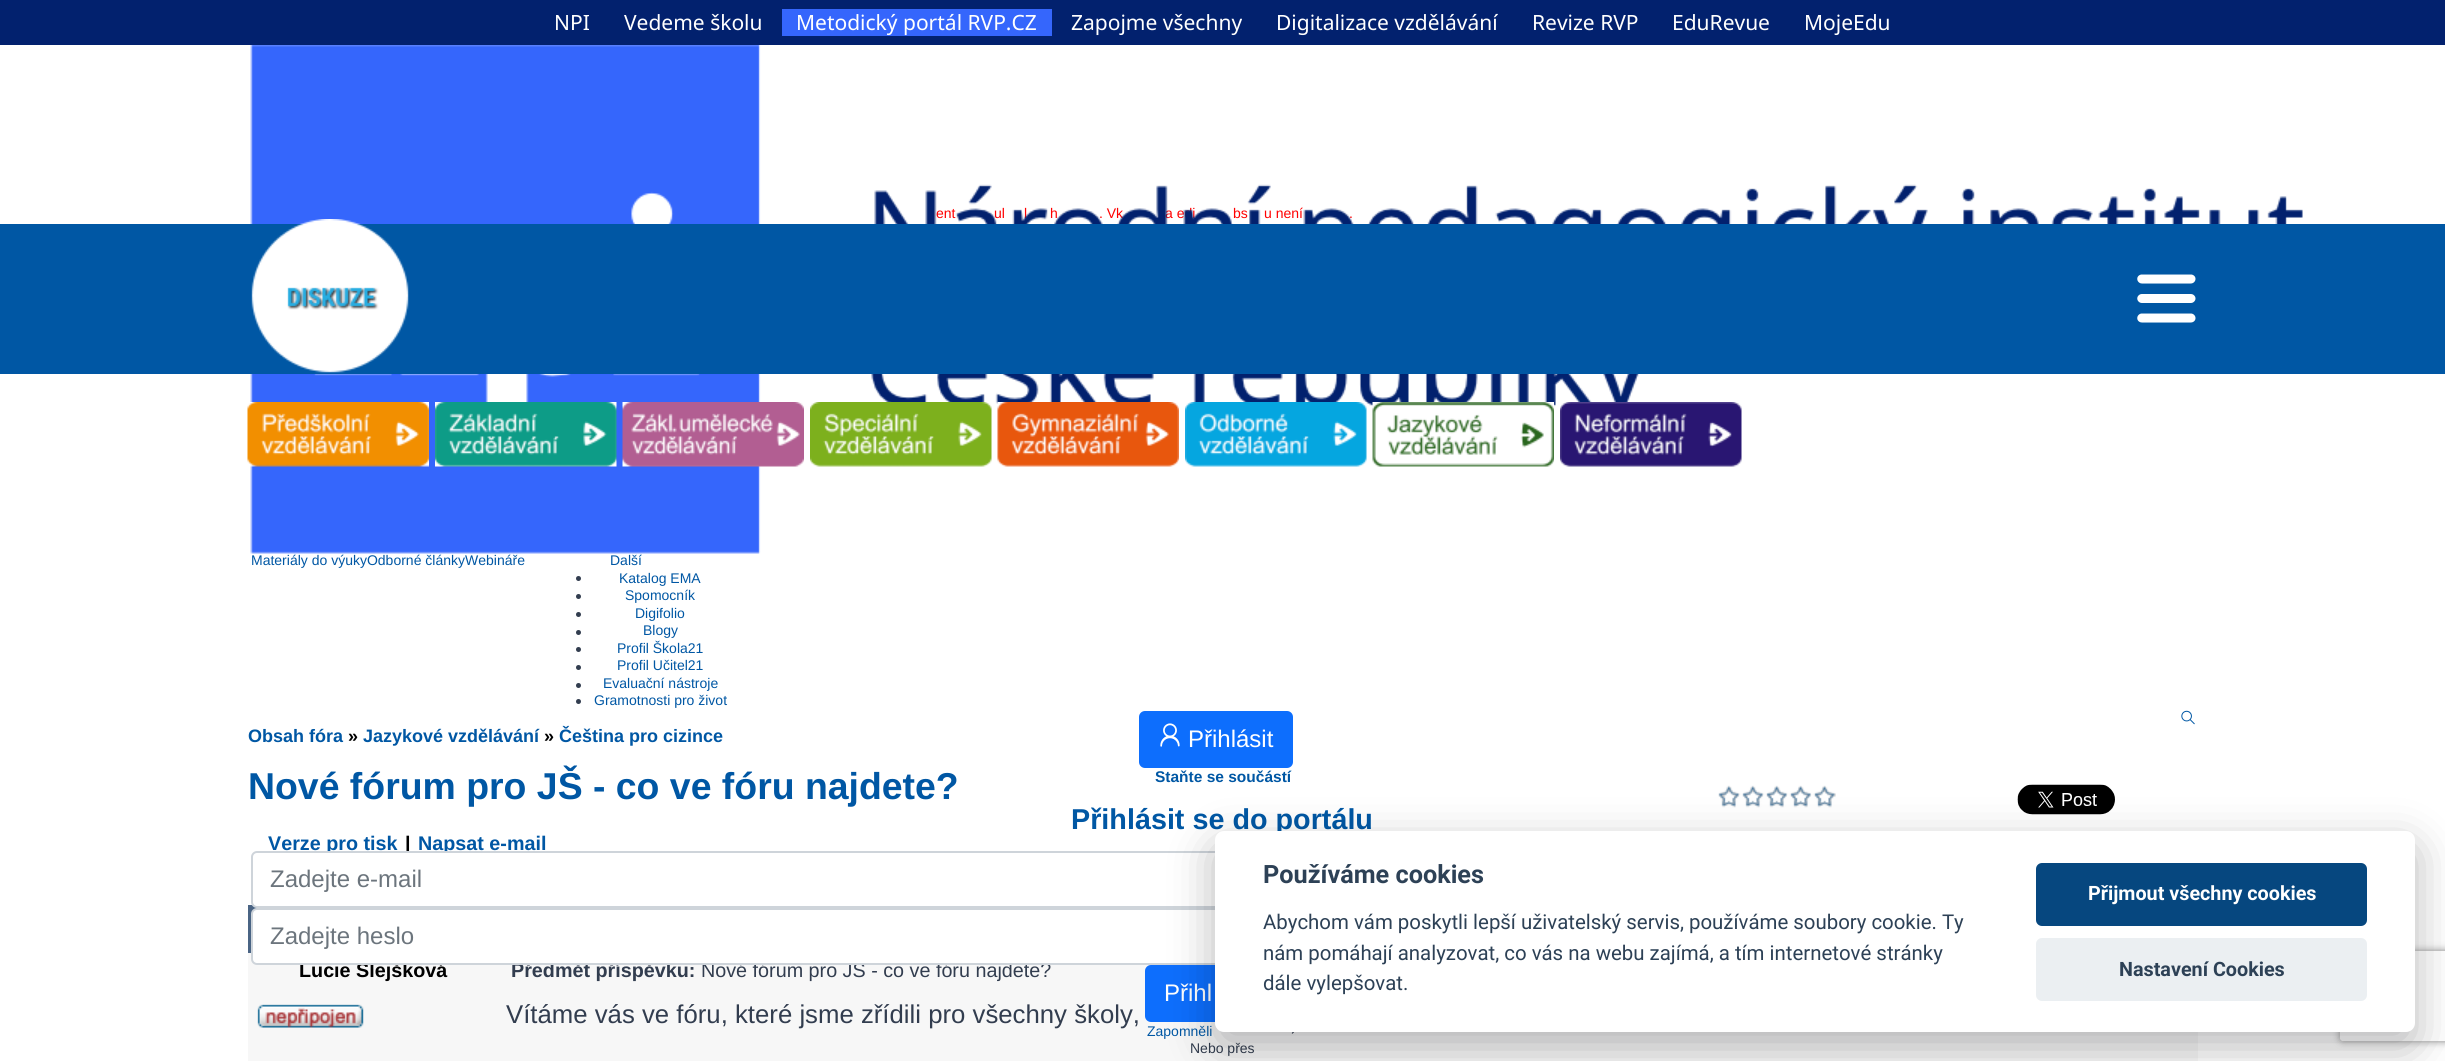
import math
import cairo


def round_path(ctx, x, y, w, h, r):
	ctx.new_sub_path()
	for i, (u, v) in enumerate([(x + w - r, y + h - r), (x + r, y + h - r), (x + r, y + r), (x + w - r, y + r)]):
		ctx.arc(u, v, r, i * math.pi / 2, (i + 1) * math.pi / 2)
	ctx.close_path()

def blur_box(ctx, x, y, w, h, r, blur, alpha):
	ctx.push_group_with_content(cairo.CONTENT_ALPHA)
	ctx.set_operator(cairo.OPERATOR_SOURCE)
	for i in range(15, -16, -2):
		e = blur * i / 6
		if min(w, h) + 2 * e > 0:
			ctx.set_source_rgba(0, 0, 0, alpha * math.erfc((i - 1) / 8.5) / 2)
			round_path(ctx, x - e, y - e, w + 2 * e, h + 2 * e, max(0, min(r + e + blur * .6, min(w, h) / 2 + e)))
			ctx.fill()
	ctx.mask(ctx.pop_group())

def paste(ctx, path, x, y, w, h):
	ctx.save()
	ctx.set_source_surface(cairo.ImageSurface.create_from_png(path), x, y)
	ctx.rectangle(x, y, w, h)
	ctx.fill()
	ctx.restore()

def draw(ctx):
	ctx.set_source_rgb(1, 1, 1)
	ctx.paint()
	ctx.set_source_rgb(0.008, 0.129, 0.431)
	ctx.rectangle(0, 0, 2445, 45)
	ctx.fill()
	ctx.select_font_face('Noto Sans')
	ctx.set_font_size(21)
	ctx.set_source_rgb(1, 1, 1)
	ctx.move_to(554, 30)
	ctx.show_text('NPI')
	ctx.move_to(624, 30)
	ctx.show_text('Vedeme školu')
	ctx.set_source_rgb(0.208, 0.4, 0.988)
	ctx.rectangle(782, 9, 270, 27)
	ctx.fill()
	ctx.set_source_rgb(1, 1, 1)
	for x, y, s in [
		(796, 30, 'Metodický portál RVP.CZ'),
		(1071, 30, 'Zapojme všechny'),
		(1276, 30, 'Digitalizace vzdělávání'),
		(1532, 30, 'Revize RVP'),
		(1672, 30, 'EduRevue'),
		(1804, 30, 'MojeEdu'),
	]:
		ctx.move_to(x, y)
		ctx.show_text(s)
	ctx.select_font_face('Liberation Sans')
	ctx.set_font_size(14)
	ctx.set_source_rgb(1, 0, 0)
	for x, y, s in [
		(936, 218, 'ent'),
		(994, 218, 'ul'),
		(1024, 218, 'l'),
		(1050, 218, 'h'),
		(1099, 218, '. Vk'),
		(1165, 218, 'a edi'),
		(1233, 218, 'bs'),
		(1264, 218, 'u není'),
		(1349, 218, '.'),
	]:
		ctx.move_to(x, y)
		ctx.show_text(s)
	paste(ctx, 'media/1.png', 250, 45, 2053, 509)
	ctx.set_source_rgb(0, 0.341, 0.643)
	for x, y, s in [
		(251, 565, 'Materiály do výukyOdborné články'),
		(465, 565, 'Webináře'),
		(610, 565, 'Další'),
	]:
		ctx.move_to(x, y)
		ctx.show_text(s)
	ctx.set_source_rgb(0.196, 0.239, 0.31)
	ctx.new_path()
	ctx.arc(578.5, 578.5, 2.5, 0, 2 * math.pi)
	ctx.fill()
	ctx.set_source_rgb(0, 0.341, 0.643)
	ctx.move_to(619, 583)
	ctx.show_text('Katalog EMA')
	ctx.set_source_rgb(0.196, 0.239, 0.31)
	ctx.new_path()
	ctx.arc(578.5, 596.5, 2.5, 0, 2 * math.pi)
	ctx.fill()
	ctx.set_source_rgb(0, 0.341, 0.643)
	ctx.move_to(625, 600)
	ctx.show_text('Spomocník')
	ctx.set_source_rgb(0.196, 0.239, 0.31)
	ctx.new_path()
	ctx.arc(578.5, 614.5, 2.5, 0, 2 * math.pi)
	ctx.fill()
	ctx.set_source_rgb(0, 0.341, 0.643)
	ctx.move_to(635, 618)
	ctx.show_text('Digifolio')
	ctx.set_source_rgb(0.196, 0.239, 0.31)
	ctx.new_path()
	ctx.arc(578.5, 632.5, 2.5, 0, 2 * math.pi)
	ctx.fill()
	ctx.set_source_rgb(0, 0.341, 0.643)
	ctx.move_to(643, 635)
	ctx.show_text('Blogy')
	ctx.set_source_rgb(0.196, 0.239, 0.31)
	ctx.new_path()
	ctx.arc(578.5, 649.5, 2.5, 0, 2 * math.pi)
	ctx.fill()
	ctx.set_source_rgb(0, 0.341, 0.643)
	ctx.move_to(617, 653)
	ctx.show_text('Profil Škola21')
	ctx.set_source_rgb(0.196, 0.239, 0.31)
	ctx.new_path()
	ctx.arc(578.5, 667.5, 2.5, 0, 2 * math.pi)
	ctx.fill()
	ctx.set_source_rgb(0, 0.341, 0.643)
	ctx.move_to(617, 670)
	ctx.show_text('Profil Učitel21')
	ctx.set_source_rgb(0.196, 0.239, 0.31)
	ctx.new_path()
	ctx.arc(578.5, 685.5, 2.5, 0, 2 * math.pi)
	ctx.fill()
	ctx.set_source_rgb(0, 0.341, 0.643)
	ctx.move_to(603, 688)
	ctx.show_text('Evaluační nástroje')
	ctx.set_source_rgb(0.196, 0.239, 0.31)
	ctx.new_path()
	ctx.arc(578.5, 701.5, 2.5, 0, 2 * math.pi)
	ctx.fill()
	ctx.set_source_rgb(0, 0.341, 0.643)
	ctx.move_to(594, 705)
	ctx.show_text('Gramotnosti pro život')
	paste(ctx, 'media/2.png', 2181, 710, 14, 15)
	ctx.set_source_rgb(0.051, 0.431, 0.992)
	round_path(ctx, 1140, 712, 152, 55, 5)
	ctx.fill_preserve()
	ctx.stroke()
	paste(ctx, 'media/3.png', 1160, 723, 20, 24)
	ctx.set_font_size(24)
	ctx.set_source_rgb(1, 1, 1)
	ctx.move_to(1188, 747)
	ctx.show_text('Přihlásit')
	ctx.select_font_face('Liberation Sans', cairo.FONT_SLANT_NORMAL, cairo.FONT_WEIGHT_BOLD)
	ctx.set_font_size(15.5)
	ctx.set_source_rgb(0, 0.341, 0.643)
	ctx.move_to(1155, 782)
	ctx.show_text('Staňte se součástí')
	ctx.set_font_size(28.75)
	ctx.move_to(1071, 829)
	ctx.show_text('Přihlásit se do portálu')
	ctx.set_font_size(19.75)
	ctx.move_to(268, 850)
	ctx.show_text('Verze pro tisk')
	ctx.set_source_rgb(0, 0, 0)
	ctx.move_to(405, 850)
	ctx.show_text('|')
	ctx.set_source_rgb(0, 0.341, 0.643)
	ctx.move_to(418, 850)
	ctx.show_text('Napsat e-mail')
	ctx.set_source_rgb(0.29, 0.392, 0.518)
	ctx.rectangle(248, 905, 9, 48)
	ctx.fill()
	ctx.set_source_rgb(1, 1, 1)
	round_path(ctx, 252, 852, 1942, 55, 5)
	ctx.fill_preserve()
	ctx.set_source_rgb(0.808, 0.831, 0.855)
	ctx.stroke()
	ctx.select_font_face('Liberation Sans')
	ctx.set_font_size(24)
	ctx.set_source_rgb(0.424, 0.459, 0.49)
	ctx.move_to(270, 887)
	ctx.show_text('Zadejte e-mail')
	ctx.set_source_rgb(0.965, 0.965, 0.965)
	ctx.rectangle(248, 953, 903, 37)
	ctx.fill()
	ctx.select_font_face('Liberation Sans', cairo.FONT_SLANT_NORMAL, cairo.FONT_WEIGHT_BOLD)
	ctx.set_font_size(19.75)
	ctx.set_source_rgb(0, 0, 0)
	ctx.move_to(299, 977)
	ctx.show_text('Lucie Slejšková')
	ctx.set_source_rgb(0.196, 0.239, 0.31)
	ctx.move_to(511, 977)
	ctx.show_text('Předmět příspěvku:')
	ctx.select_font_face('Liberation Sans')
	ctx.move_to(701, 977)
	ctx.show_text('Nové fórum pro JŠ - co ve fóru najdete?')
	ctx.set_source_rgb(1, 1, 1)
	round_path(ctx, 252, 909, 1942, 55, 5)
	ctx.fill_preserve()
	ctx.set_source_rgb(0.808, 0.831, 0.855)
	ctx.stroke()
	ctx.set_font_size(24)
	ctx.set_source_rgb(0.424, 0.459, 0.49)
	ctx.move_to(270, 944)
	ctx.show_text('Zadejte heslo')
	ctx.set_source_rgb(0.965, 0.965, 0.965)
	ctx.rectangle(248, 990, 1950, 71)
	ctx.fill()
	ctx.set_source_rgb(0.051, 0.431, 0.992)
	round_path(ctx, 1146, 966, 154, 55, 5)
	ctx.fill_preserve()
	ctx.stroke()
	ctx.set_source_rgb(1, 1, 1)
	ctx.move_to(1164, 1001)
	ctx.show_text('Přihl')
	ctx.set_font_size(14)
	ctx.set_source_rgb(0, 0.341, 0.643)
	ctx.move_to(1147, 1036)
	ctx.show_text('Zapomněli')
	paste(ctx, 'media/4.png', 1291, 1032, 3, 2)
	ctx.set_source_rgb(0.196, 0.239, 0.31)
	ctx.move_to(1190, 1053)
	ctx.show_text('Nebo přes')
	ctx.set_source_rgb(0, 0.341, 0.643)
	ctx.rectangle(0, 224, 2445, 150)
	ctx.fill()
	paste(ctx, 'media/5.png', 251, 219, 158, 154)
	paste(ctx, 'media/6.png', 2137, 274, 59, 49)
	paste(ctx, 'media/7.png', 247, 402, 182, 65)
	paste(ctx, 'media/8.png', 435, 402, 182, 65)
	paste(ctx, 'media/9.png', 622, 402, 182, 65)
	paste(ctx, 'media/10.png', 810, 402, 182, 65)
	paste(ctx, 'media/11.png', 997, 402, 182, 65)
	paste(ctx, 'media/12.png', 1185, 402, 182, 65)
	paste(ctx, 'media/13.png', 1372, 402, 182, 65)
	paste(ctx, 'media/14.png', 1560, 402, 182, 65)
	ctx.select_font_face('Liberation Sans', cairo.FONT_SLANT_NORMAL, cairo.FONT_WEIGHT_BOLD)
	ctx.set_font_size(18)
	ctx.move_to(248, 742)
	ctx.show_text('Obsah fóra')
	ctx.set_source_rgb(0, 0, 0)
	ctx.move_to(348, 742)
	ctx.show_text('»')
	ctx.set_source_rgb(0, 0.341, 0.643)
	ctx.move_to(363, 742)
	ctx.show_text('Jazykové vzdělávání')
	ctx.set_source_rgb(0, 0, 0)
	ctx.move_to(544, 742)
	ctx.show_text('»')
	ctx.set_source_rgb(0, 0.341, 0.643)
	ctx.move_to(559, 742)
	ctx.show_text('Čeština pro cizince')
	ctx.set_font_size(37.4)
	ctx.move_to(248, 799)
	ctx.show_text('Nové fórum pro JŠ - co ve fóru najdete?')
	paste(ctx, 'media/15.png', 1718, 785, 118, 23)
	paste(ctx, 'media/16.png', 2017, 784, 98, 31)
	paste(ctx, 'media/17.png', 257, 1004, 107, 24)
	ctx.select_font_face('Liberation Sans')
	ctx.set_font_size(25.75)
	ctx.set_source_rgb(0.196, 0.239, 0.31)
	ctx.move_to(506, 1023)
	ctx.show_text('Vítáme vás ve fóru, které jsme zřídili pro všechny školy,')
	ctx.set_source_rgb(0.008, 0.008, 0.012)
	blur_box(ctx, 1215, 846, 1200, 201, 9, 22.5, 0.28)
	ctx.save()
	ctx.set_fill_rule(cairo.FILL_RULE_EVEN_ODD)
	ctx.new_path()
	ctx.move_to(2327, 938)
	ctx.line_to(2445, 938)
	ctx.line_to(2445, 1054)
	ctx.line_to(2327, 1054)
	ctx.close_path()
	ctx.move_to(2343, 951)
	ctx.line_to(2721, 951)
	ctx.curve_to(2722.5, 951, 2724, 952.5, 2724, 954)
	ctx.line_to(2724, 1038)
	ctx.curve_to(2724, 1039.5, 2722.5, 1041, 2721, 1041)
	ctx.line_to(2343, 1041)
	ctx.curve_to(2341.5, 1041, 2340, 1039.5, 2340, 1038)
	ctx.line_to(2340, 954)
	ctx.curve_to(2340, 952.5, 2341.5, 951, 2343, 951)
	ctx.close_path()
	ctx.clip()
	ctx.set_source_rgb(0.502, 0.502, 0.502)
	blur_box(ctx, 2340, 951, 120, 90, 3, 4, 1)
	ctx.restore()
	ctx.set_source_rgb(1, 1, 1)
	round_path(ctx, 1215, 831, 1200, 201, 9)
	ctx.fill()
	ctx.select_font_face('Roboto', cairo.FONT_SLANT_NORMAL, cairo.FONT_WEIGHT_BOLD)
	ctx.set_font_size(25.25)
	ctx.set_source_rgb(0.176, 0.255, 0.337)
	ctx.move_to(1263, 883)
	ctx.show_text('Používáme cookies')
	ctx.select_font_face('Roboto')
	ctx.set_font_size(20.4)
	for x, y, s in [
		(1263, 929, 'Abychom vám poskytli lepší uživatelský servis, používáme soubory cookie. Ty'),
		(1263, 960, 'nám pomáhají analyzovat, co vás na webu zajímá, a tím internetové stránky'),
		(1263, 990, 'dále vylepšovat.'),
	]:
		ctx.move_to(x, y)
		ctx.show_text(s)
	ctx.set_source_rgb(0.027, 0.278, 0.498)
	round_path(ctx, 2036, 863, 331, 63, 6)
	ctx.fill()
	ctx.select_font_face('Roboto', cairo.FONT_SLANT_NORMAL, cairo.FONT_WEIGHT_BOLD)
	ctx.set_font_size(19.75)
	ctx.set_source_rgb(1, 1, 1)
	ctx.move_to(2088, 900)
	ctx.show_text('Přijmout všechny cookies')
	ctx.set_source_rgb(0.918, 0.937, 0.949)
	round_path(ctx, 2036, 938, 331, 63, 6)
	ctx.fill()
	ctx.set_source_rgb(0.176, 0.255, 0.337)
	ctx.move_to(2119, 976)
	ctx.show_text('Nastavení Cookies')


surface = cairo.ImageSurface(cairo.FORMAT_RGB24, 2445, 1061)
ctx = cairo.Context(surface)
options = cairo.FontOptions()
options.set_hint_metrics(cairo.HINT_METRICS_OFF)
options.set_hint_style(cairo.HINT_STYLE_NONE)
ctx.set_font_options(options)
ctx.set_miter_limit(4)
draw(ctx)
surface.write_to_png('image.png')
